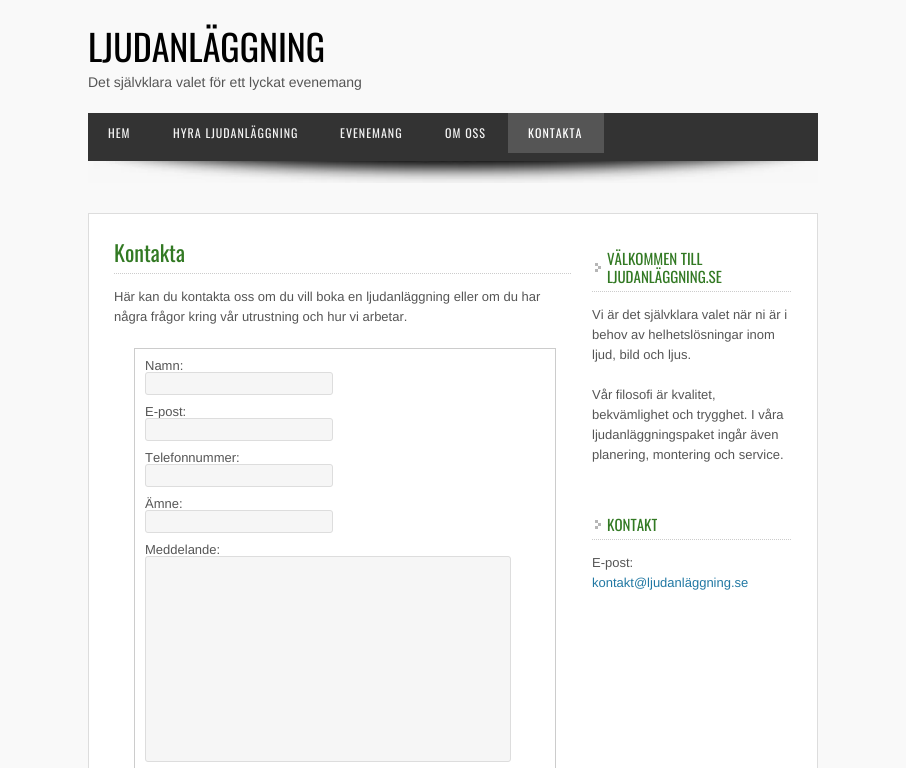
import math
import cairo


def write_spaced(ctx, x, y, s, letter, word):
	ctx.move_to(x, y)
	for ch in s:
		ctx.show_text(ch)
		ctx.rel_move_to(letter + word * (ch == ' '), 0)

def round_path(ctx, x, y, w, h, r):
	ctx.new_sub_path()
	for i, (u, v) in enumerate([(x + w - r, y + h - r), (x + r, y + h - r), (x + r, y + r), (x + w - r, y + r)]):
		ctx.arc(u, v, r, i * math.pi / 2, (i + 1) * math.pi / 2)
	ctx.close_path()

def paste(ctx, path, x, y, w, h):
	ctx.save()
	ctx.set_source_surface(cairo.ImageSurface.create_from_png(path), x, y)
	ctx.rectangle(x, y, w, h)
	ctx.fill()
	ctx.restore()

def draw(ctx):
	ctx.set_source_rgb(0.973, 0.973, 0.973)
	ctx.paint()
	ctx.select_font_face('Oswald')
	ctx.set_font_size(36)
	ctx.set_source_rgb(0, 0, 0)
	ctx.move_to(88, 62)
	ctx.show_text('LJUDANLÄGGNING')
	ctx.select_font_face('Liberation Sans')
	ctx.set_font_size(14)
	ctx.set_source_rgb(0.333, 0.333, 0.333)
	ctx.move_to(88, 87)
	ctx.show_text('Det självklara valet för ett lyckat evenemang')
	ctx.set_source_rgb(0.2, 0.2, 0.2)
	ctx.rectangle(88, 113, 730, 48)
	ctx.fill()
	paste(ctx, 'media/1.png', 88, 161, 730, 22)
	ctx.select_font_face('Oswald')
	ctx.set_font_size(12)
	ctx.set_source_rgb(0.953, 0.953, 0.953)
	for x, y, s in [
		(108, 138, 'HEM'),
		(173, 138, 'HYRA LJUDANLÄGGNING'),
		(340, 138, 'EVENEMANG'),
		(445, 138, 'OM OSS'),
	]:
		write_spaced(ctx, x, y, s, 1, 0)
	ctx.set_source_rgb(0.333, 0.333, 0.333)
	ctx.rectangle(508, 113, 96, 40)
	ctx.fill()
	ctx.set_source_rgb(1, 1, 1)
	write_spaced(ctx, 528, 138, 'KONTAKTA', 1, 0)
	ctx.rectangle(88.5, 213.5, 729, 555)
	ctx.fill_preserve()
	ctx.set_source_rgb(0.867, 0.867, 0.867)
	ctx.set_line_width(1)
	ctx.stroke()
	ctx.new_path()
	ctx.move_to(114, 273.5)
	ctx.line_to(572, 273.5)
	ctx.set_source_rgb(0.8, 0.8, 0.8)
	ctx.set_dash([1, 1])
	ctx.stroke()
	ctx.set_font_size(22)
	ctx.set_source_rgb(0.196, 0.475, 0.137)
	ctx.move_to(114, 262)
	ctx.show_text('Kontakta')
	ctx.select_font_face('Liberation Sans')
	ctx.set_font_size(13)
	ctx.set_source_rgb(0.333, 0.333, 0.333)
	ctx.move_to(114, 301)
	ctx.show_text('Här kan du kontakta oss om du vill boka en ljudanläggning eller om du har')
	ctx.move_to(114, 321)
	ctx.show_text('några frågor kring vår utrustning och hur vi arbetar.')
	ctx.rectangle(134.5, 348.5, 421, 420)
	ctx.set_source_rgb(0.8, 0.8, 0.8)
	ctx.set_dash([])
	ctx.stroke()
	ctx.set_source_rgb(0.333, 0.333, 0.333)
	ctx.move_to(145, 370)
	ctx.show_text('Namn:')
	ctx.set_source_rgb(0.961, 0.961, 0.961)
	round_path(ctx, 145.5, 372.5, 187, 22, 2.5)
	ctx.fill_preserve()
	ctx.set_source_rgb(0.867, 0.867, 0.867)
	ctx.stroke()
	ctx.set_source_rgb(0.333, 0.333, 0.333)
	ctx.move_to(145, 416)
	ctx.show_text('E-post:')
	ctx.set_source_rgb(0.961, 0.961, 0.961)
	round_path(ctx, 145.5, 418.5, 187, 22, 2.5)
	ctx.fill_preserve()
	ctx.set_source_rgb(0.867, 0.867, 0.867)
	ctx.stroke()
	ctx.set_source_rgb(0.333, 0.333, 0.333)
	ctx.move_to(145, 462)
	ctx.show_text('Telefonnummer:')
	ctx.set_source_rgb(0.961, 0.961, 0.961)
	round_path(ctx, 145.5, 464.5, 187, 22, 2.5)
	ctx.fill_preserve()
	ctx.set_source_rgb(0.867, 0.867, 0.867)
	ctx.stroke()
	ctx.set_source_rgb(0.333, 0.333, 0.333)
	ctx.move_to(145, 508)
	ctx.show_text('Ämne:')
	ctx.set_source_rgb(0.961, 0.961, 0.961)
	round_path(ctx, 145.5, 510.5, 187, 22, 2.5)
	ctx.fill_preserve()
	ctx.set_source_rgb(0.867, 0.867, 0.867)
	ctx.stroke()
	ctx.set_source_rgb(0.333, 0.333, 0.333)
	ctx.move_to(145, 554)
	ctx.show_text('Meddelande:')
	ctx.set_source_rgb(0.961, 0.961, 0.961)
	round_path(ctx, 145.5, 556.5, 365, 205, 2.5)
	ctx.fill_preserve()
	ctx.set_source_rgb(0.867, 0.867, 0.867)
	ctx.stroke()
	paste(ctx, 'media/2.png', 595, 263, 6, 9)
	ctx.new_path()
	ctx.move_to(592, 291.5)
	ctx.line_to(792, 291.5)
	ctx.set_source_rgb(0.8, 0.8, 0.8)
	ctx.set_dash([1, 1])
	ctx.stroke()
	ctx.select_font_face('Oswald')
	ctx.set_font_size(15)
	ctx.set_source_rgb(0.196, 0.475, 0.137)
	ctx.move_to(607, 265)
	ctx.show_text('VÄLKOMMEN TILL')
	ctx.move_to(607, 283)
	ctx.show_text('LJUDANLÄGGNING.SE')
	ctx.select_font_face('Liberation Sans')
	ctx.set_font_size(13)
	ctx.set_source_rgb(0.333, 0.333, 0.333)
	for x, y, s in [
		(592, 319, 'Vi är det självklara valet när ni är i'),
		(592, 339, 'behov av helhetslösningar inom'),
		(592, 359, 'ljud, bild och ljus.'),
		(592, 399, 'Vår filosofi är kvalitet,'),
		(592, 419, 'bekvämlighet och trygghet. I våra'),
		(592, 439, 'ljudanläggningspaket ingår även'),
		(592, 459, 'planering, montering och service.'),
	]:
		ctx.move_to(x, y)
		ctx.show_text(s)
	paste(ctx, 'media/2.png', 595, 520, 6, 9)
	ctx.new_path()
	ctx.move_to(592, 539.5)
	ctx.line_to(792, 539.5)
	ctx.set_source_rgb(0.8, 0.8, 0.8)
	ctx.stroke()
	ctx.select_font_face('Oswald')
	ctx.set_font_size(15)
	ctx.set_source_rgb(0.196, 0.475, 0.137)
	ctx.move_to(607, 531)
	ctx.show_text('KONTAKT')
	ctx.select_font_face('Liberation Sans')
	ctx.set_font_size(13)
	ctx.set_source_rgb(0.333, 0.333, 0.333)
	ctx.move_to(592, 567)
	ctx.show_text('E-post:')
	ctx.set_source_rgb(0.129, 0.471, 0.639)
	ctx.move_to(592, 587)
	ctx.show_text('kontakt@ljudanläggning.se')


surface = cairo.ImageSurface(cairo.FORMAT_RGB24, 906, 768)
ctx = cairo.Context(surface)
options = cairo.FontOptions()
options.set_hint_metrics(cairo.HINT_METRICS_OFF)
options.set_hint_style(cairo.HINT_STYLE_NONE)
ctx.set_font_options(options)
ctx.set_miter_limit(4)
draw(ctx)
surface.write_to_png('image.png')
